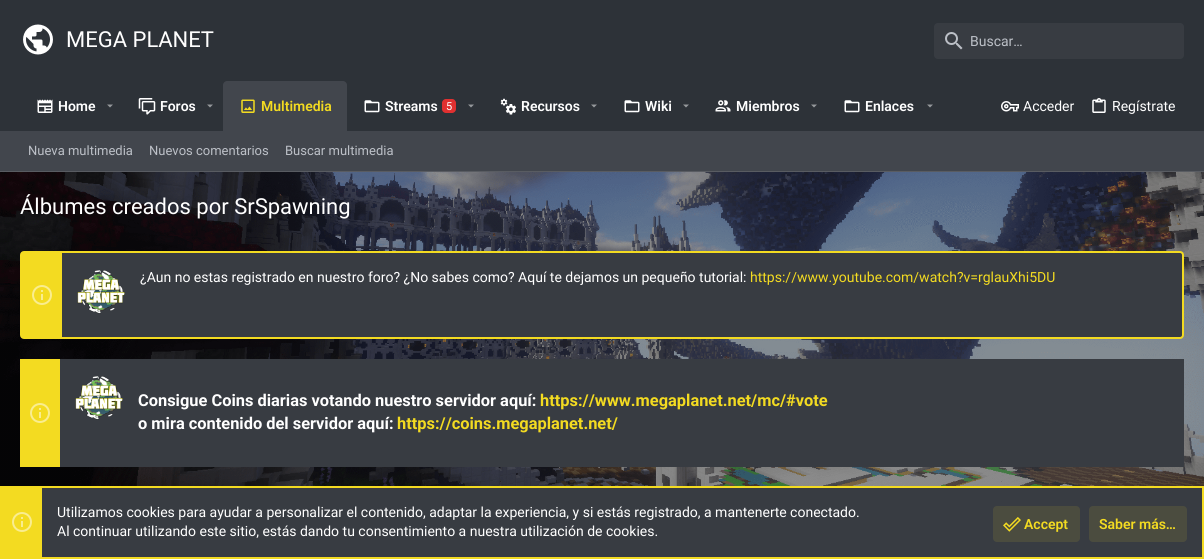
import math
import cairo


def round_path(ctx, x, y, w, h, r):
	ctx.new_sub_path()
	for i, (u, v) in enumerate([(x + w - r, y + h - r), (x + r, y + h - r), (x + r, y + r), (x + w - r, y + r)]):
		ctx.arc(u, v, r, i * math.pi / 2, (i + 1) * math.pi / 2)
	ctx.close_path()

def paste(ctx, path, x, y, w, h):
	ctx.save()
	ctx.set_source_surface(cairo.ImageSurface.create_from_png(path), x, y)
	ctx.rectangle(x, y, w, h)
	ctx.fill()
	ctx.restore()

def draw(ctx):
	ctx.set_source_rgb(1, 1, 1)
	ctx.paint()
	paste(ctx, 'media/1.png', 0, 172, 1204, 314)
	ctx.set_source_rgb(0.176, 0.196, 0.22)
	ctx.rectangle(0, 0, 1204, 131)
	ctx.fill()
	paste(ctx, 'media/2.png', 23, 24, 30, 31)
	ctx.select_font_face('Roboto')
	ctx.set_font_size(22)
	ctx.set_source_rgb(1, 1, 1)
	ctx.move_to(66, 47)
	ctx.show_text('MEGA PLANET')
	ctx.set_source_rgb(0.22, 0.235, 0.259)
	round_path(ctx, 934, 23, 250, 36, 4)
	ctx.fill()
	paste(ctx, 'media/3.png', 945, 32, 18, 18)
	ctx.set_font_size(14)
	ctx.set_source_rgb(0.737, 0.753, 0.78)
	ctx.move_to(970, 46)
	ctx.show_text('Buscar…')
	paste(ctx, 'media/4.png', 37, 99, 16, 14)
	ctx.select_font_face('Roboto SemiBold')
	ctx.set_source_rgb(1, 1, 1)
	ctx.move_to(58, 111)
	ctx.show_text('Home')
	ctx.set_source_rgb(0.588, 0.6, 0.612)
	ctx.new_path()
	ctx.move_to(107, 104.5)
	ctx.line_to(110, 107.5)
	ctx.line_to(113, 104.5)
	ctx.close_path()
	ctx.fill()
	paste(ctx, 'media/5.png', 138, 98, 18, 17)
	ctx.set_source_rgb(1, 1, 1)
	ctx.move_to(160, 111)
	ctx.show_text('Foros')
	ctx.set_source_rgb(0.588, 0.6, 0.612)
	ctx.new_path()
	ctx.move_to(207, 104.5)
	ctx.line_to(210, 107.5)
	ctx.line_to(213, 104.5)
	ctx.close_path()
	ctx.fill()
	ctx.set_source_rgb(0.259, 0.275, 0.302)
	ctx.new_path()
	ctx.move_to(227, 81)
	ctx.line_to(343, 81)
	ctx.curve_to(345, 81, 347, 83, 347, 85)
	ctx.line_to(347, 131)
	ctx.line_to(223, 131)
	ctx.line_to(223, 85)
	ctx.curve_to(223, 83, 225, 81, 227, 81)
	ctx.close_path()
	ctx.fill()
	paste(ctx, 'media/6.png', 241, 99, 14, 14)
	ctx.set_source_rgb(0.953, 0.859, 0.129)
	ctx.move_to(261, 111)
	ctx.show_text('Multimedia')
	paste(ctx, 'media/7.png', 364, 100, 16, 13)
	ctx.set_source_rgb(1, 1, 1)
	ctx.move_to(385, 111)
	ctx.show_text('Streams')
	ctx.set_source_rgb(0.878, 0.188, 0.188)
	round_path(ctx, 442, 99, 14, 14, 4)
	ctx.fill()
	ctx.select_font_face('Roboto')
	ctx.set_font_size(11)
	ctx.set_source_rgb(1, 1, 1)
	ctx.move_to(446, 110)
	ctx.show_text('5')
	ctx.set_source_rgb(0.588, 0.6, 0.612)
	ctx.new_path()
	ctx.move_to(468, 104.5)
	ctx.line_to(471, 107.5)
	ctx.line_to(474, 104.5)
	ctx.close_path()
	ctx.fill()
	paste(ctx, 'media/8.png', 500, 98, 16, 17)
	ctx.select_font_face('Roboto SemiBold')
	ctx.set_font_size(14)
	ctx.set_source_rgb(1, 1, 1)
	ctx.move_to(521, 111)
	ctx.show_text('Recursos')
	ctx.set_source_rgb(0.588, 0.6, 0.612)
	ctx.new_path()
	ctx.move_to(591, 104.5)
	ctx.line_to(594, 107.5)
	ctx.line_to(597, 104.5)
	ctx.close_path()
	ctx.fill()
	paste(ctx, 'media/7.png', 624, 100, 16, 13)
	ctx.set_source_rgb(1, 1, 1)
	ctx.move_to(645, 111)
	ctx.show_text('Wiki')
	ctx.set_source_rgb(0.588, 0.6, 0.612)
	ctx.new_path()
	ctx.move_to(683, 104.5)
	ctx.line_to(686, 107.5)
	ctx.line_to(689, 104.5)
	ctx.close_path()
	ctx.fill()
	paste(ctx, 'media/9.png', 715, 100, 16, 12)
	ctx.set_source_rgb(1, 1, 1)
	ctx.move_to(736, 111)
	ctx.show_text('Miembros')
	ctx.set_source_rgb(0.588, 0.6, 0.612)
	ctx.new_path()
	ctx.move_to(811, 104.5)
	ctx.line_to(814, 107.5)
	ctx.line_to(817, 104.5)
	ctx.close_path()
	ctx.fill()
	paste(ctx, 'media/7.png', 844, 100, 16, 13)
	ctx.set_source_rgb(1, 1, 1)
	ctx.move_to(865, 111)
	ctx.show_text('Enlaces')
	ctx.set_source_rgb(0.588, 0.6, 0.612)
	ctx.new_path()
	ctx.move_to(927, 104.5)
	ctx.line_to(930, 107.5)
	ctx.line_to(933, 104.5)
	ctx.close_path()
	ctx.fill()
	paste(ctx, 'media/10.png', 1001, 101, 18, 11)
	ctx.select_font_face('Roboto')
	ctx.set_source_rgb(1, 1, 1)
	ctx.move_to(1023, 111)
	ctx.show_text('Acceder')
	paste(ctx, 'media/11.png', 1092, 98, 14, 15)
	ctx.move_to(1112, 111)
	ctx.show_text('Regístrate')
	ctx.set_source_rgb(0.259, 0.275, 0.302)
	ctx.rectangle(0, 131, 1204, 40)
	ctx.fill()
	ctx.set_source_rgb(0.349, 0.361, 0.384)
	ctx.rectangle(0, 171, 1204, 1)
	ctx.fill()
	ctx.set_font_size(13)
	ctx.set_source_rgb(0.737, 0.753, 0.78)
	for x, y, s in [
		(28, 155, 'Nueva multimedia'),
		(149, 155, 'Nuevos comentarios'),
		(285, 155, 'Buscar multimedia'),
	]:
		ctx.move_to(x, y)
		ctx.show_text(s)
	ctx.set_font_size(22)
	ctx.set_source_rgb(1, 1, 1)
	ctx.move_to(20, 214)
	ctx.show_text('Álbumes creados por SrSpawning')
	ctx.set_source_rgb(0.22, 0.235, 0.259)
	round_path(ctx, 21, 252, 1162, 86, 3)
	ctx.fill_preserve()
	ctx.set_source_rgb(0.953, 0.859, 0.129)
	ctx.stroke()
	ctx.rectangle(22, 253, 40, 84)
	ctx.fill()
	paste(ctx, 'media/12.png', 32, 285, 20, 20)
	paste(ctx, 'media/13.png', 77, 270, 48, 44)
	ctx.set_font_size(14)
	ctx.set_source_rgb(1, 1, 1)
	ctx.move_to(140, 282)
	ctx.show_text('¿Aun no estas registrado en nuestro foro? ¿No sabes como? Aquí te dejamos un pequeño tutorial:')
	ctx.set_source_rgb(0.953, 0.859, 0.129)
	ctx.move_to(750, 282)
	ctx.show_text('https://www.youtube.com/watch?v=rglauXhi5DU')
	ctx.set_source_rgb(0.22, 0.235, 0.259)
	ctx.rectangle(60, 359, 1124, 108)
	ctx.fill()
	ctx.set_source_rgb(0.953, 0.859, 0.129)
	ctx.rectangle(20, 359, 40, 108)
	ctx.fill()
	paste(ctx, 'media/12.png', 30, 403, 20, 20)
	paste(ctx, 'media/14.png', 75, 376, 48, 44)
	ctx.select_font_face('Roboto', cairo.FONT_SLANT_NORMAL, cairo.FONT_WEIGHT_BOLD)
	ctx.set_font_size(16.4)
	ctx.set_source_rgb(1, 1, 1)
	ctx.move_to(138, 406)
	ctx.show_text('Consigue Coins diarias votando nuestro servidor aquí:')
	ctx.set_source_rgb(0.953, 0.859, 0.129)
	ctx.move_to(540, 406)
	ctx.show_text('https://www.megaplanet.net/mc/#vote')
	ctx.set_source_rgb(1, 1, 1)
	ctx.move_to(138, 429)
	ctx.show_text('o mira contenido del servidor aquí:')
	ctx.set_source_rgb(0.953, 0.859, 0.129)
	ctx.move_to(397, 429)
	ctx.show_text('https://coins.megaplanet.net/')
	ctx.set_source_rgb(0.22, 0.235, 0.259)
	ctx.rectangle(42, 488, 1160, 69)
	ctx.fill()
	ctx.rectangle(1, 487, 1202, 71)
	ctx.set_source_rgb(0.953, 0.859, 0.129)
	ctx.stroke()
	ctx.rectangle(2, 488, 40, 69)
	ctx.fill()
	paste(ctx, 'media/12.png', 12, 512, 20, 20)
	ctx.select_font_face('Roboto')
	ctx.set_font_size(14)
	ctx.set_source_rgb(1, 1, 1)
	ctx.move_to(57, 517)
	ctx.show_text('Utilizamos cookies para ayudar a personalizar el contenido, adaptar la experiencia, y si estás registrado, a mantenerte conectado.')
	ctx.move_to(57, 536)
	ctx.show_text('Al continuar utilizando este sitio, estás dando tu consentimiento a nuestra utilización de cookies.')
	ctx.set_source_rgb(0.294, 0.298, 0.247)
	round_path(ctx, 993, 506, 87, 36, 4)
	ctx.fill()
	paste(ctx, 'media/15.png', 1003, 517, 18, 15)
	ctx.select_font_face('Roboto SemiBold')
	ctx.set_source_rgb(0.953, 0.859, 0.129)
	ctx.move_to(1024, 529)
	ctx.show_text('Accept')
	ctx.set_source_rgb(0.294, 0.298, 0.247)
	round_path(ctx, 1089, 506, 98, 36, 4)
	ctx.fill()
	ctx.set_source_rgb(0.953, 0.859, 0.129)
	ctx.move_to(1099, 529)
	ctx.show_text('Saber más…')


surface = cairo.ImageSurface(cairo.FORMAT_RGB24, 1204, 559)
ctx = cairo.Context(surface)
options = cairo.FontOptions()
options.set_hint_metrics(cairo.HINT_METRICS_OFF)
options.set_hint_style(cairo.HINT_STYLE_NONE)
ctx.set_font_options(options)
ctx.set_miter_limit(4)
draw(ctx)
surface.write_to_png('image.png')
